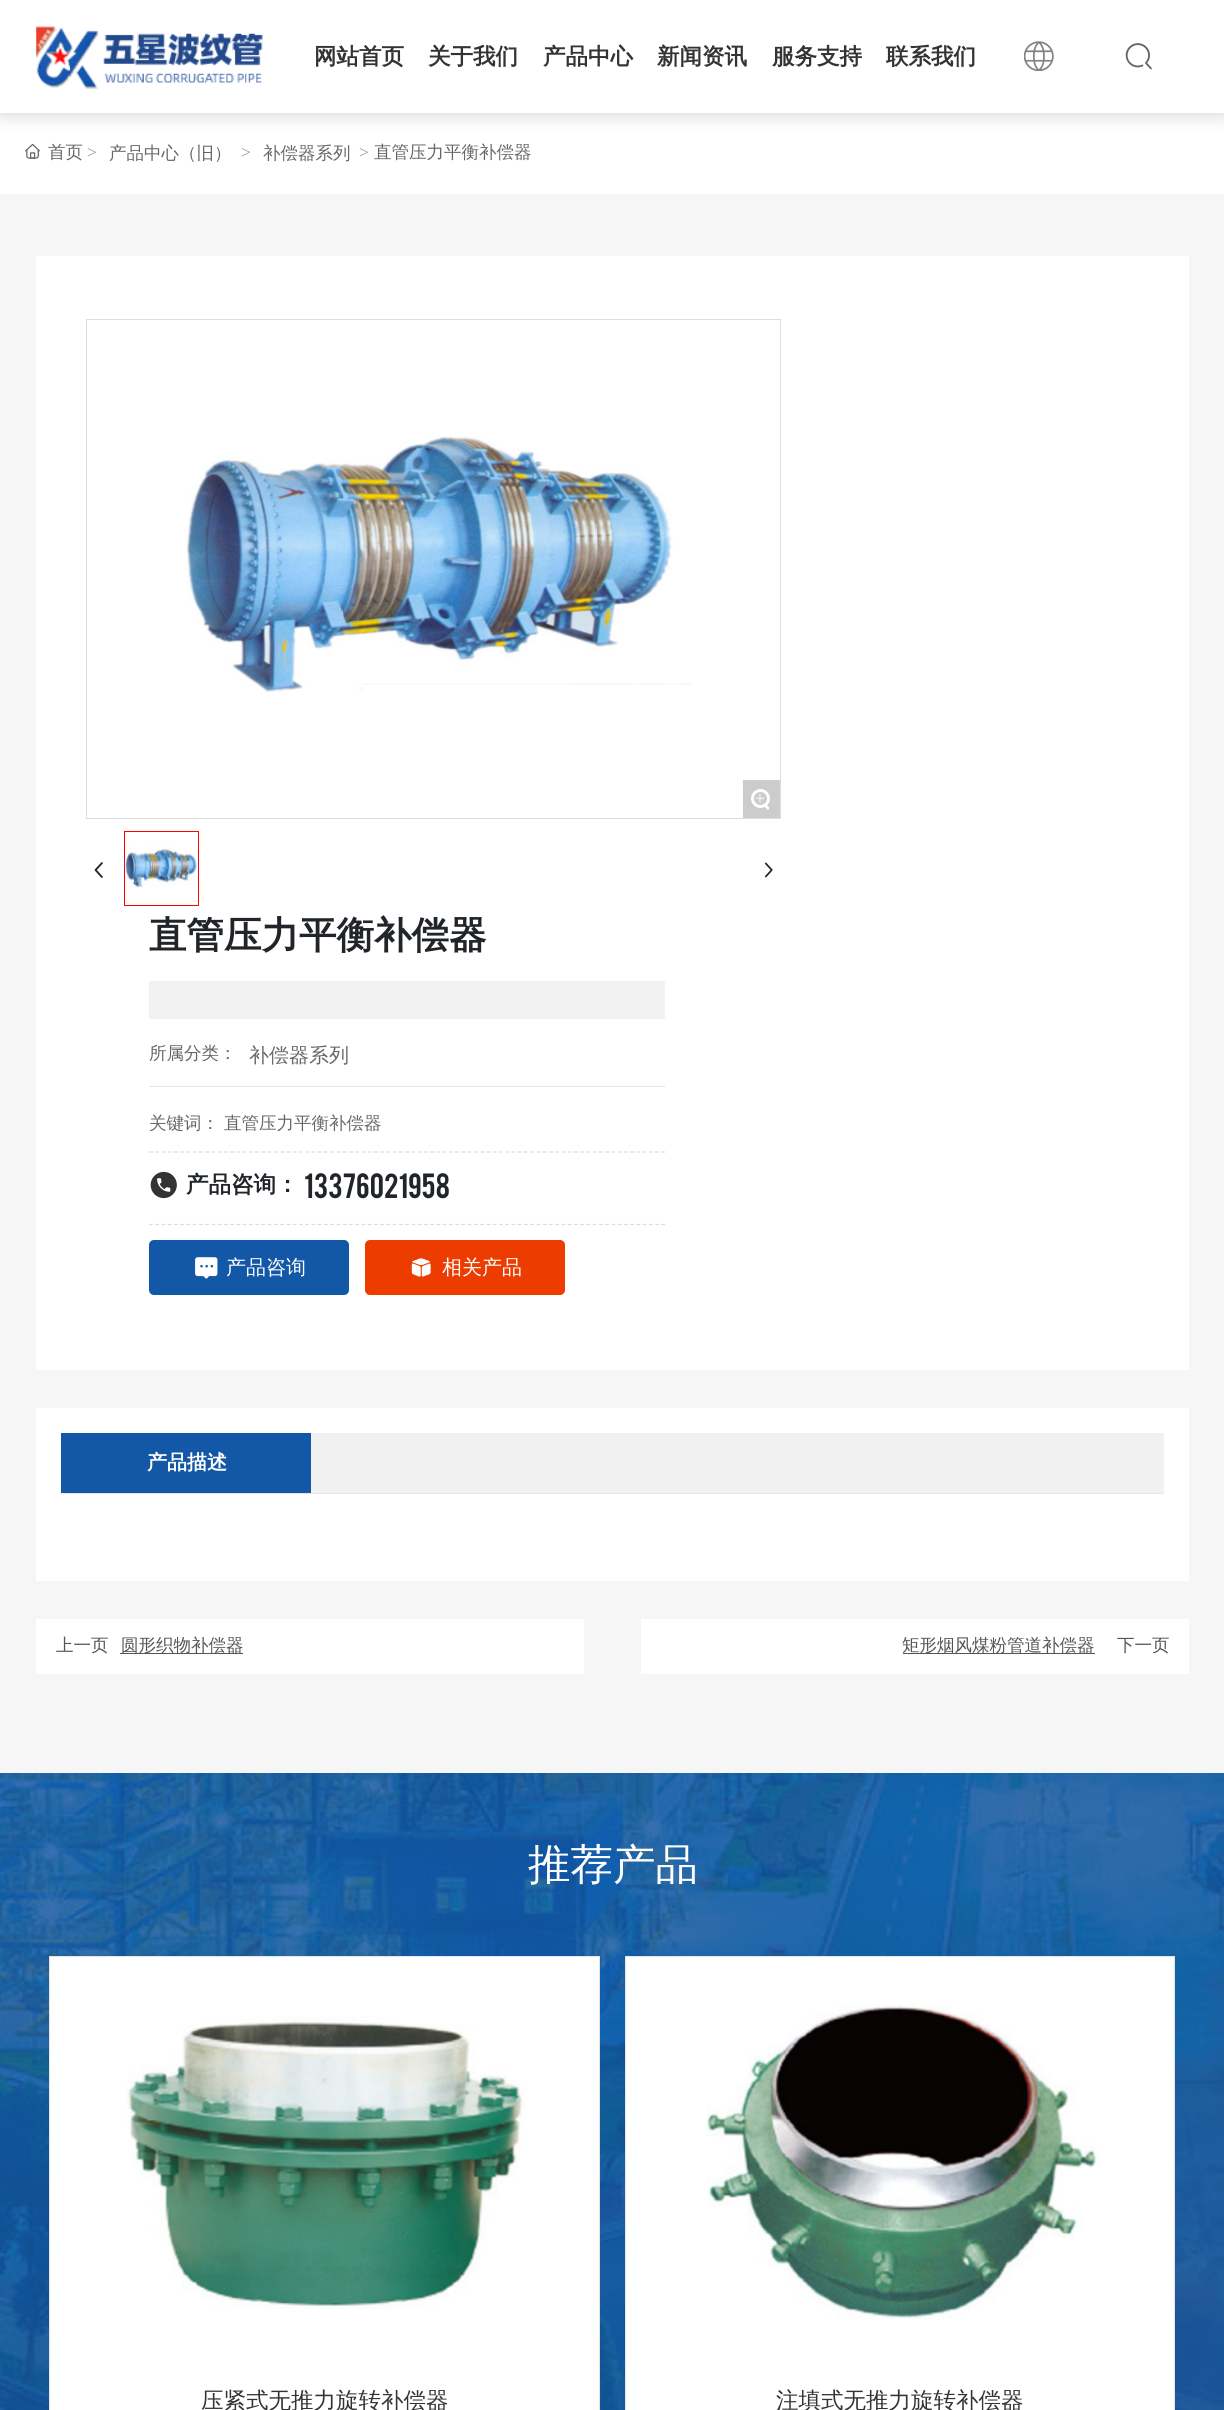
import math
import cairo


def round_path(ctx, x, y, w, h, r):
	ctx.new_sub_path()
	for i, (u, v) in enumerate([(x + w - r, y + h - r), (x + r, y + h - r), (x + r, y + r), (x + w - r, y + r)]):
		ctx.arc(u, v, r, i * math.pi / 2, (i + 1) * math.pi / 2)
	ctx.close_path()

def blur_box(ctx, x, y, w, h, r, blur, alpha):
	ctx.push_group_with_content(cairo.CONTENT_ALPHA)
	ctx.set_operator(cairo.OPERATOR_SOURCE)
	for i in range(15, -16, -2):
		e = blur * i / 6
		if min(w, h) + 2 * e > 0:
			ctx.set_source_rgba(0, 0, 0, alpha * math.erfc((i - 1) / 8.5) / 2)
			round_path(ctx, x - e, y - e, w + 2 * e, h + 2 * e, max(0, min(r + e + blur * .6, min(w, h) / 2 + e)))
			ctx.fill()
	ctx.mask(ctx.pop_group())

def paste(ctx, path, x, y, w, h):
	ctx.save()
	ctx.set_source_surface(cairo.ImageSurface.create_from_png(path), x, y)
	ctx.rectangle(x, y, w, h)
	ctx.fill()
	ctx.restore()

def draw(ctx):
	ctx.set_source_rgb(1, 1, 1)
	ctx.paint()
	ctx.set_source_rgb(0, 0, 0)
	blur_box(ctx, 0, 0, 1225, 113, 0, 9.5, 0.2)
	ctx.set_source_rgb(1, 1, 1)
	ctx.rectangle(0, 0, 1224, 113)
	ctx.fill()
	paste(ctx, 'media/1.png', 36, 26, 227, 63)
	ctx.select_font_face('WenQuanYi Zen Hei', cairo.FONT_SLANT_NORMAL, cairo.FONT_WEIGHT_BOLD)
	ctx.set_font_size(22.5)
	ctx.set_source_rgb(0.2, 0.2, 0.2)
	for x, y, s in [
		(314, 64, '网站首页'),
		(428, 64, '关于我们'),
		(543, 64, '产品中心'),
		(657, 64, '新闻资讯'),
		(772, 64, '服务支持'),
		(886, 64, '联系我们'),
	]:
		ctx.move_to(x, y)
		ctx.show_text(s)
	paste(ctx, 'media/2.png', 1024, 41, 30, 30)
	paste(ctx, 'media/3.png', 1125, 43, 27, 27)
	paste(ctx, 'media/4.png', 25, 144, 15, 15)
	ctx.select_font_face('WenQuanYi Zen Hei Medium')
	ctx.set_font_size(17.5)
	ctx.set_source_rgb(0.4, 0.4, 0.4)
	ctx.move_to(48, 158)
	ctx.show_text('首页')
	ctx.select_font_face('Liberation Serif')
	ctx.set_source_rgb(0.6, 0.6, 0.6)
	ctx.move_to(87, 158)
	ctx.show_text('>')
	ctx.select_font_face('WenQuanYi Zen Hei Medium')
	ctx.set_source_rgb(0.4, 0.4, 0.4)
	ctx.move_to(109, 159)
	ctx.show_text('产品中心（旧）')
	ctx.select_font_face('Liberation Serif')
	ctx.set_source_rgb(0.6, 0.6, 0.6)
	ctx.move_to(241, 158)
	ctx.show_text('>')
	ctx.select_font_face('WenQuanYi Zen Hei Medium')
	ctx.set_source_rgb(0.4, 0.4, 0.4)
	ctx.move_to(263, 159)
	ctx.show_text('补偿器系列')
	ctx.select_font_face('Liberation Serif')
	ctx.set_source_rgb(0.6, 0.6, 0.6)
	ctx.move_to(359, 158)
	ctx.show_text('>')
	ctx.select_font_face('WenQuanYi Zen Hei Medium')
	ctx.set_source_rgb(0.4, 0.4, 0.4)
	ctx.move_to(374, 158)
	ctx.show_text('直管压力平衡补偿器')
	ctx.set_source_rgb(0.961, 0.961, 0.961)
	ctx.rectangle(0, 194, 1224, 1579)
	ctx.fill()
	ctx.set_source_rgb(1, 1, 1)
	ctx.rectangle(36, 256, 1153, 1114)
	ctx.fill()
	ctx.rectangle(86.5, 319.5, 694, 499)
	ctx.set_source_rgb(0.867, 0.867, 0.867)
	ctx.set_line_width(1)
	ctx.stroke()
	paste(ctx, 'media/5.png', 186, 436, 506, 256)
	ctx.set_source_rgb(0.8, 0.8, 0.8)
	ctx.rectangle(743, 780, 37, 38)
	ctx.fill()
	ctx.arc(760.5, 798.5, 8, 0, 2 * math.pi)
	ctx.set_source_rgb(1, 1, 1)
	ctx.set_line_width(3)
	ctx.stroke()
	ctx.select_font_face('Liberation Serif')
	ctx.move_to(755, 804)
	ctx.show_text('+')
	ctx.new_path()
	ctx.move_to(765, 803.5)
	ctx.line_to(769.5, 808)
	ctx.line_to(768, 810)
	ctx.line_to(763.5, 805.5)
	ctx.close_path()
	ctx.fill()
	ctx.rectangle(124.5, 831.5, 74, 74)
	ctx.set_source_rgb(1, 0, 0)
	ctx.set_line_width(1)
	ctx.stroke()
	paste(ctx, 'media/6.png', 125, 847, 72, 41)
	paste(ctx, 'media/7.png', 94, 862, 9, 16)
	paste(ctx, 'media/8.png', 764, 862, 9, 16)
	ctx.select_font_face('WenQuanYi Zen Hei', cairo.FONT_SLANT_NORMAL, cairo.FONT_WEIGHT_BOLD)
	ctx.set_font_size(37.5)
	ctx.set_source_rgb(0.129, 0.145, 0.161)
	ctx.move_to(149, 948)
	ctx.show_text('直管压力平衡补偿器')
	ctx.set_source_rgb(0.949, 0.949, 0.949)
	ctx.rectangle(149, 981, 516, 38)
	ctx.fill()
	ctx.select_font_face('WenQuanYi Zen Hei Medium')
	ctx.set_font_size(17.5)
	ctx.set_source_rgb(0.4, 0.4, 0.4)
	ctx.move_to(149, 1059)
	ctx.show_text('所属分类：')
	ctx.set_font_size(20)
	ctx.move_to(249, 1062)
	ctx.show_text('补偿器系列')
	ctx.set_source_rgb(0.898, 0.898, 0.898)
	ctx.rectangle(149, 1086, 516, 1)
	ctx.fill()
	ctx.set_font_size(17.5)
	ctx.set_source_rgb(0.4, 0.4, 0.4)
	ctx.move_to(149, 1129)
	ctx.show_text('关键词：')
	ctx.move_to(224, 1129)
	ctx.show_text('直管压力平衡补偿器')
	ctx.new_path()
	ctx.move_to(149, 1152)
	ctx.line_to(665, 1152)
	ctx.set_source_rgb(0.867, 0.867, 0.867)
	ctx.set_line_width(1.2)
	ctx.set_dash([3.75, 2.5])
	ctx.stroke()
	ctx.new_path()
	ctx.move_to(149, 1224.5)
	ctx.line_to(665, 1224.5)
	ctx.stroke()
	paste(ctx, 'media/9.png', 150, 1171, 27, 28)
	ctx.select_font_face('WenQuanYi Zen Hei', cairo.FONT_SLANT_NORMAL, cairo.FONT_WEIGHT_BOLD)
	ctx.set_font_size(22.5)
	ctx.set_source_rgb(0.129, 0.145, 0.161)
	ctx.move_to(186, 1192)
	ctx.show_text('产品咨询：')
	ctx.select_font_face('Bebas')
	ctx.set_font_size(27.5)
	ctx.move_to(304, 1198)
	ctx.show_text('13376021958')
	ctx.set_source_rgb(0.075, 0.341, 0.655)
	round_path(ctx, 149, 1240, 200, 55, 5)
	ctx.fill()
	paste(ctx, 'media/10.png', 195, 1257, 23, 22)
	ctx.select_font_face('WenQuanYi Zen Hei Medium')
	ctx.set_font_size(20)
	ctx.set_source_rgb(1, 1, 1)
	ctx.move_to(226, 1274)
	ctx.show_text('产品咨询')
	ctx.set_source_rgb(0.922, 0.235, 0)
	round_path(ctx, 365, 1240, 200, 55, 5)
	ctx.fill()
	paste(ctx, 'media/11.png', 411, 1258, 20, 19)
	ctx.set_source_rgb(1, 1, 1)
	ctx.move_to(442, 1274)
	ctx.show_text('相关产品')
	ctx.rectangle(36, 1408, 1153, 173)
	ctx.fill()
	ctx.set_source_rgb(0.945, 0.945, 0.945)
	ctx.rectangle(311, 1433, 853, 60)
	ctx.fill()
	ctx.set_source_rgb(0.898, 0.898, 0.898)
	ctx.rectangle(61, 1493, 1103, 1)
	ctx.fill()
	ctx.set_source_rgb(0.075, 0.341, 0.655)
	ctx.rectangle(61, 1433, 250, 60)
	ctx.fill()
	ctx.select_font_face('WenQuanYi Zen Hei', cairo.FONT_SLANT_NORMAL, cairo.FONT_WEIGHT_BOLD)
	ctx.set_source_rgb(1, 1, 1)
	ctx.move_to(147, 1469)
	ctx.show_text('产品描述')
	ctx.rectangle(36, 1619, 548, 55)
	ctx.fill()
	ctx.select_font_face('WenQuanYi Zen Hei Medium')
	ctx.set_font_size(17.5)
	ctx.set_source_rgb(0.333, 0.333, 0.333)
	ctx.move_to(56, 1651)
	ctx.show_text('上一页')
	ctx.rectangle(120, 1653, 123, 1)
	ctx.fill()
	ctx.move_to(121, 1651)
	ctx.show_text('圆形织物补偿器')
	ctx.set_source_rgb(1, 1, 1)
	ctx.rectangle(641, 1619, 548, 55)
	ctx.fill()
	ctx.set_source_rgb(0.333, 0.333, 0.333)
	ctx.rectangle(903, 1653, 192, 1)
	ctx.fill()
	ctx.move_to(902, 1651)
	ctx.show_text('矩形烟风煤粉管道补偿器')
	ctx.move_to(1117, 1651)
	ctx.show_text('下一页')
	paste(ctx, 'media/12.png', 0, 1773, 1224, 637)
	ctx.set_font_size(42.5)
	ctx.set_source_rgb(1, 1, 1)
	ctx.move_to(528, 1879)
	ctx.show_text('推荐产品')
	ctx.rectangle(49.5, 1956.5, 550, 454)
	ctx.fill_preserve()
	ctx.set_source_rgb(0.898, 0.898, 0.898)
	ctx.set_line_width(1)
	ctx.set_dash([])
	ctx.stroke()
	paste(ctx, 'media/13.png', 126, 2016, 400, 293)
	ctx.set_font_size(22.5)
	ctx.set_source_rgb(0.2, 0.2, 0.2)
	ctx.move_to(201, 2408)
	ctx.show_text('压紧式无推力旋转补偿器')
	ctx.set_source_rgb(1, 1, 1)
	ctx.rectangle(625.5, 1956.5, 549, 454)
	ctx.fill_preserve()
	ctx.set_source_rgb(0.898, 0.898, 0.898)
	ctx.stroke()
	paste(ctx, 'media/14.png', 707, 2004, 395, 316)
	ctx.set_source_rgb(0.2, 0.2, 0.2)
	ctx.move_to(776, 2408)
	ctx.show_text('注填式无推力旋转补偿器')


surface = cairo.ImageSurface(cairo.FORMAT_RGB24, 1224, 2410)
ctx = cairo.Context(surface)
options = cairo.FontOptions()
options.set_hint_metrics(cairo.HINT_METRICS_OFF)
options.set_hint_style(cairo.HINT_STYLE_NONE)
ctx.set_font_options(options)
ctx.set_miter_limit(4)
draw(ctx)
surface.write_to_png('image.png')
